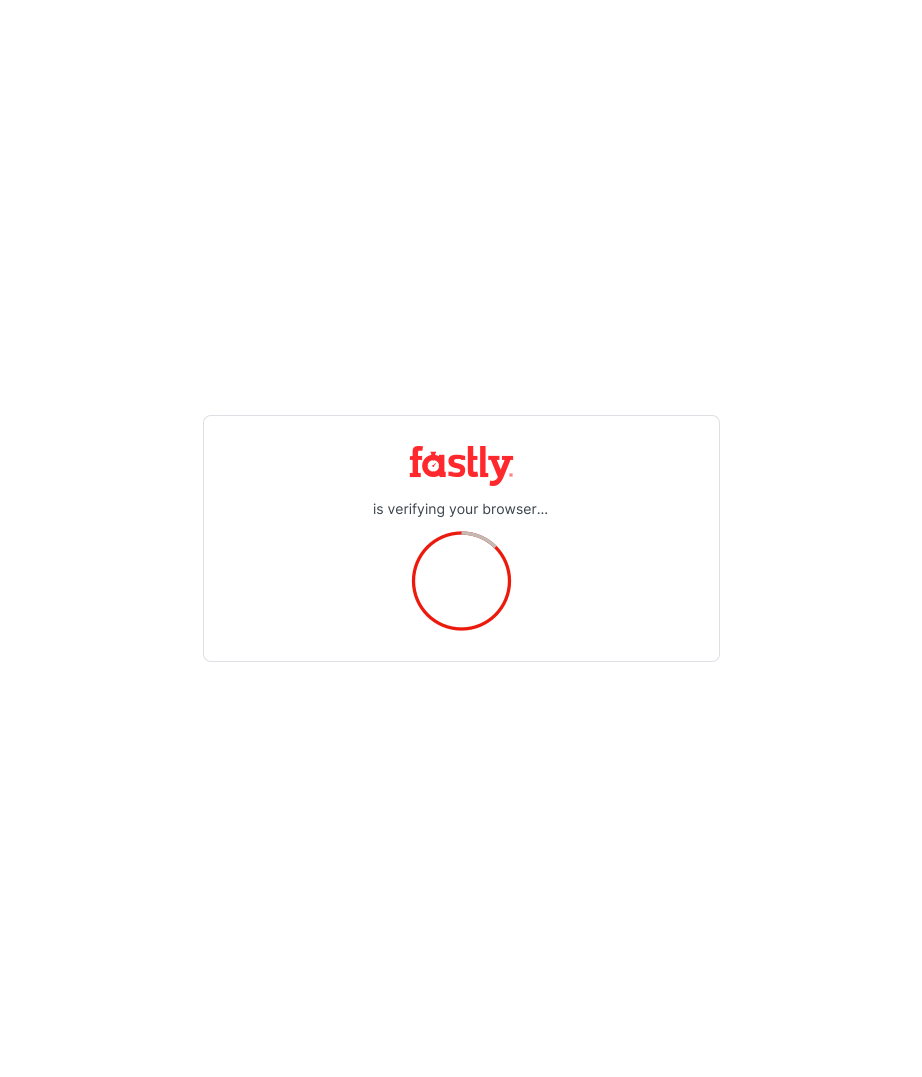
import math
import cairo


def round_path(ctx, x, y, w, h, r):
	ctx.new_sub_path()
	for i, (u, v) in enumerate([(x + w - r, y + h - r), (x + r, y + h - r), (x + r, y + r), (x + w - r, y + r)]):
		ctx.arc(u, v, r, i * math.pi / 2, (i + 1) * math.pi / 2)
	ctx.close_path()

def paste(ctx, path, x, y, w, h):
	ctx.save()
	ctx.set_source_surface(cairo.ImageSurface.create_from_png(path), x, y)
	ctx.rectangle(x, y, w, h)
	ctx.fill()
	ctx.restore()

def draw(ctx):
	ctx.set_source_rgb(1, 1, 1)
	ctx.paint()
	round_path(ctx, 203.5, 415.5, 516, 246, 7.5)
	ctx.set_source_rgb(0.863, 0.878, 0.894)
	ctx.set_line_width(1)
	ctx.stroke()
	paste(ctx, 'media/1.png', 409, 446, 105, 40)
	ctx.select_font_face('Inter')
	ctx.set_font_size(14)
	ctx.set_source_rgb(0.227, 0.259, 0.29)
	ctx.move_to(373, 514)
	ctx.show_text('is verifying your browser...')
	ctx.new_path()
	ctx.move_to(413.5, 581)
	ctx.curve_to(413.5, 554.5, 435, 533, 461.5, 533)
	ctx.curve_to(488, 533, 509.5, 554.5, 509.5, 581)
	ctx.curve_to(509.5, 607.5, 488, 629, 461.5, 629)
	ctx.curve_to(435, 629, 413.5, 607.5, 413.5, 581)
	ctx.close_path()
	ctx.set_source_rgb(0.922, 0.102, 0.047)
	ctx.set_line_width(3.3)
	ctx.stroke()
	ctx.new_path()
	ctx.move_to(495.5, 547)
	ctx.curve_to(486.5, 538, 474, 533, 461.5, 533)
	ctx.set_source_rgb(0.761, 0.729, 0.71)
	ctx.stroke()


surface = cairo.ImageSurface(cairo.FORMAT_RGB24, 922, 1077)
ctx = cairo.Context(surface)
options = cairo.FontOptions()
options.set_hint_metrics(cairo.HINT_METRICS_OFF)
options.set_hint_style(cairo.HINT_STYLE_NONE)
ctx.set_font_options(options)
ctx.set_miter_limit(4)
draw(ctx)
surface.write_to_png('image.png')
